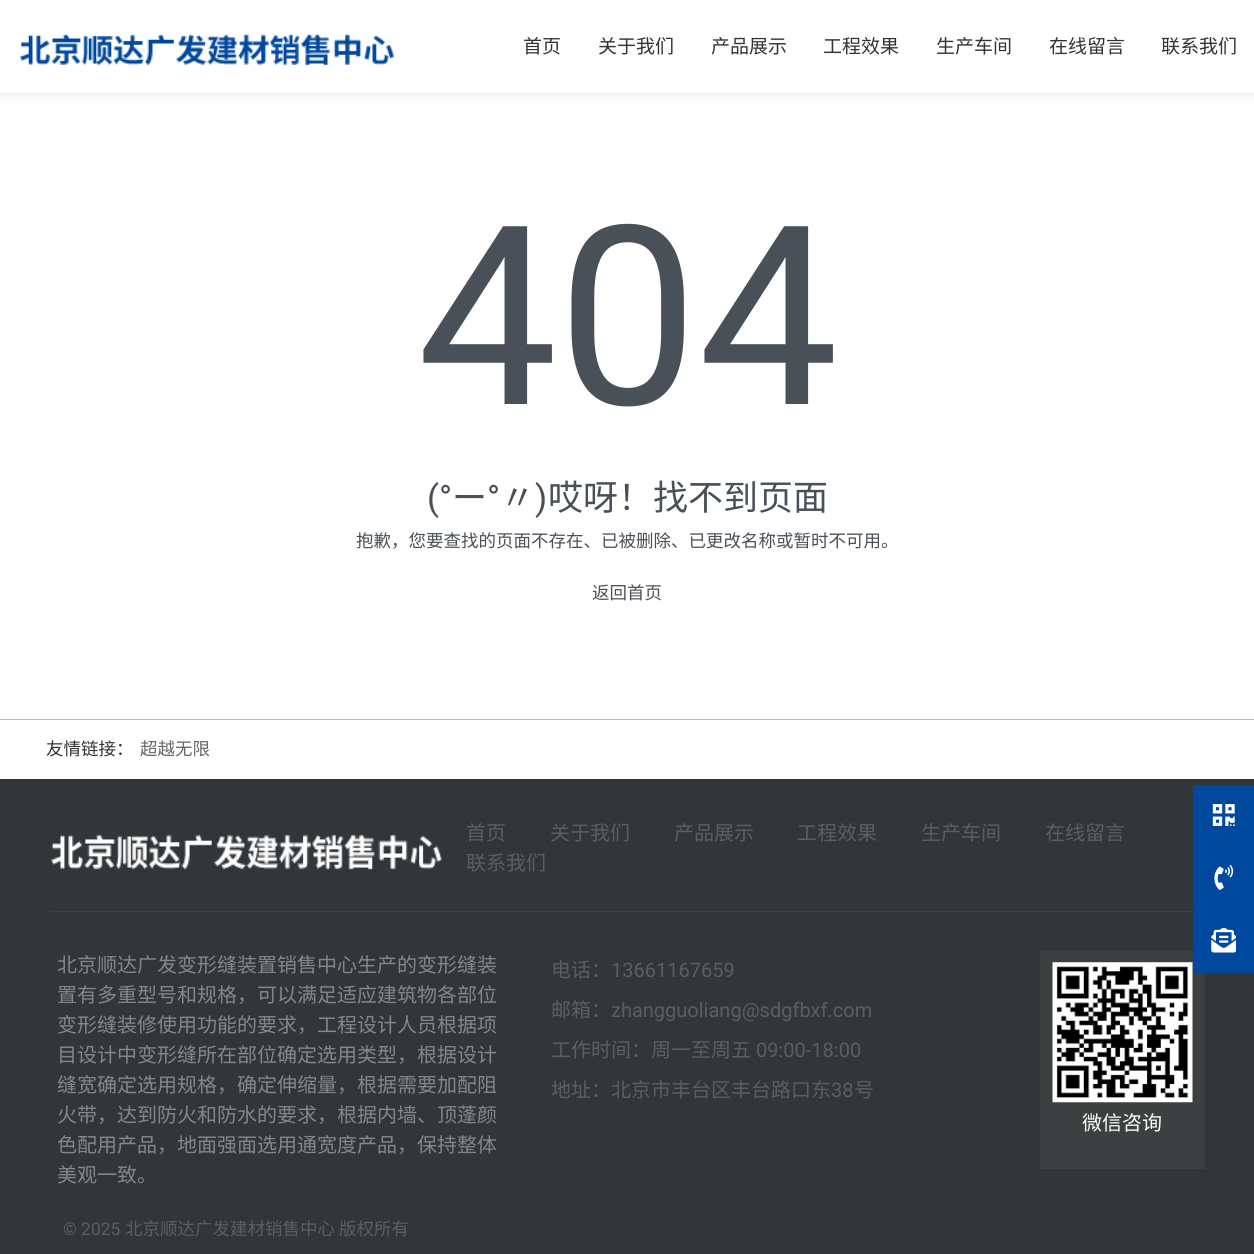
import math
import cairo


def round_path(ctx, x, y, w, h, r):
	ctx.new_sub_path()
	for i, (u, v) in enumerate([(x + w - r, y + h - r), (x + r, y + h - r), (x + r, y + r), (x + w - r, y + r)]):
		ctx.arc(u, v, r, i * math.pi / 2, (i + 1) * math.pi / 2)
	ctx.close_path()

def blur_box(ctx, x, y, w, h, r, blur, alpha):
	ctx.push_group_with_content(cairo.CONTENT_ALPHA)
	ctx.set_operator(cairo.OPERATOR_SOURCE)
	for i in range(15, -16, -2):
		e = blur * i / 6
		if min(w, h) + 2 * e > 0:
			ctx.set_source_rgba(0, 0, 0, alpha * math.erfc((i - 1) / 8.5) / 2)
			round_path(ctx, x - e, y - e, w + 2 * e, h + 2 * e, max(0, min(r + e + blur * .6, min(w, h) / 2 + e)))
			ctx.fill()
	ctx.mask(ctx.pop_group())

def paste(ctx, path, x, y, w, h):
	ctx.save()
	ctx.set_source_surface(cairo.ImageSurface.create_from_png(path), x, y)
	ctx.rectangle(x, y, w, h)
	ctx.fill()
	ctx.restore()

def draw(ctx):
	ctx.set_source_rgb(1, 1, 1)
	ctx.paint()
	ctx.set_source_rgb(0, 0, 0)
	blur_box(ctx, 0, 0, 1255, 93, 0, 6, 0.1)
	ctx.set_source_rgb(1, 1, 1)
	ctx.rectangle(0, 0, 1254, 93)
	ctx.fill()
	paste(ctx, 'media/1.png', 19, 34, 375, 32)
	ctx.select_font_face('Noto Sans CJK SC')
	ctx.set_font_size(19)
	ctx.set_source_rgb(0.2, 0.2, 0.2)
	for x, y, s in [
		(523, 53, '首页'),
		(598, 53, '关于我们'),
		(711, 53, '产品展示'),
		(823, 53, '工程效果'),
		(936, 53, '生产车间'),
		(1049, 53, '在线留言'),
		(1161, 53, '联系我们'),
	]:
		ctx.move_to(x, y)
		ctx.show_text(s)
	ctx.select_font_face('Roboto')
	ctx.set_font_size(250)
	ctx.set_source_rgb(0.286, 0.314, 0.341)
	ctx.move_to(417, 404)
	ctx.show_text('404')
	ctx.set_font_size(35)
	ctx.move_to(427, 510)
	ctx.show_text('(°')
	ctx.select_font_face('Noto Sans CJK SC')
	ctx.move_to(452, 510)
	ctx.show_text('ー')
	ctx.select_font_face('Roboto')
	ctx.move_to(487, 510)
	ctx.show_text('°')
	ctx.select_font_face('Noto Sans CJK SC')
	ctx.move_to(500, 510)
	ctx.show_text('〃')
	ctx.select_font_face('Roboto')
	ctx.move_to(535, 510)
	ctx.show_text(')')
	ctx.select_font_face('Noto Sans CJK SC')
	ctx.move_to(548, 510)
	ctx.show_text('哎呀！找不到页面')
	ctx.set_font_size(17.5)
	ctx.move_to(356, 547)
	ctx.show_text('抱歉，您要查找的页面不存在、已被删除、已更改名称或暂时不可用。')
	ctx.move_to(592, 599)
	ctx.show_text('返回首页')
	ctx.set_source_rgb(0.745, 0.745, 0.745)
	ctx.rectangle(0, 719, 1254, 1)
	ctx.fill()
	ctx.set_source_rgb(0.2, 0.2, 0.2)
	ctx.move_to(46, 755)
	ctx.show_text('友情链接：')
	ctx.set_source_rgb(0.4, 0.4, 0.4)
	ctx.move_to(140, 755)
	ctx.show_text('超越无限')
	ctx.set_source_rgb(0.196, 0.212, 0.22)
	ctx.rectangle(0, 779, 1254, 475)
	ctx.fill()
	paste(ctx, 'media/2.png', 51, 834, 391, 36)
	ctx.set_font_size(20)
	ctx.set_source_rgb(0.357, 0.369, 0.376)
	for x, y, s in [
		(466, 840, '首页'),
		(550, 840, '关于我们'),
		(674, 840, '产品展示'),
		(797, 840, '工程效果'),
		(921, 840, '生产车间'),
		(1045, 840, '在线留言'),
		(466, 870, '联系我们'),
	]:
		ctx.move_to(x, y)
		ctx.show_text(s)
	ctx.set_source_rgb(0.235, 0.251, 0.255)
	ctx.rectangle(50, 911, 1143, 1)
	ctx.fill()
	ctx.set_source_rgb(0.518, 0.525, 0.533)
	for x, y, s in [
		(57, 972, '北京顺达广发变形缝装置销售中心生产的变形缝装'),
		(57, 1002, '置有多重型号和规格，可以满足适应建筑物各部位'),
		(57, 1032, '变形缝装修使用功能的要求，工程设计人员根据项'),
		(57, 1062, '目设计中变形缝所在部位确定选用类型，根据设计'),
		(57, 1092, '缝宽确定选用规格，确定伸缩量，根据需要加配阻'),
		(57, 1122, '火带，达到防火和防水的要求，根据内墙、顶蓬颜'),
		(57, 1152, '色配用产品，地面强面选用通宽度产品，保持整体'),
		(57, 1182, '美观一致。'),
	]:
		ctx.move_to(x, y)
		ctx.show_text(s)
	ctx.select_font_face('Roboto')
	ctx.set_font_size(17.5)
	ctx.set_source_rgb(0.357, 0.369, 0.376)
	ctx.move_to(63, 1235)
	ctx.show_text('© 2025')
	ctx.select_font_face('Noto Sans CJK SC')
	ctx.move_to(125, 1235)
	ctx.show_text('北京顺达广发建材销售中心')
	ctx.move_to(339, 1235)
	ctx.show_text('版权所有')
	ctx.set_font_size(20)
	ctx.move_to(551, 977)
	ctx.show_text('电话：')
	ctx.select_font_face('Roboto')
	ctx.move_to(611, 977)
	ctx.show_text('13661167659')
	ctx.select_font_face('Noto Sans CJK SC')
	ctx.move_to(551, 1017)
	ctx.show_text('邮箱：')
	ctx.select_font_face('Roboto')
	ctx.move_to(611, 1017)
	ctx.show_text('zhangguoliang@sdgfbxf.com')
	ctx.select_font_face('Noto Sans CJK SC')
	ctx.move_to(551, 1057)
	ctx.show_text('工作时间：周一至周五')
	ctx.select_font_face('Roboto')
	ctx.move_to(756, 1057)
	ctx.show_text('09:00-18:00')
	ctx.select_font_face('Noto Sans CJK SC')
	ctx.move_to(551, 1097)
	ctx.show_text('地址：北京市丰台区丰台路口东')
	ctx.select_font_face('Roboto')
	ctx.move_to(831, 1097)
	ctx.show_text('38')
	ctx.select_font_face('Noto Sans CJK SC')
	ctx.move_to(854, 1097)
	ctx.show_text('号')
	ctx.set_source_rgb(0.235, 0.251, 0.255)
	ctx.rectangle(1040, 950, 165, 219)
	ctx.fill()
	paste(ctx, 'media/3.png', 1052, 962, 141, 141)
	ctx.set_source_rgb(1, 1, 1)
	ctx.move_to(1082, 1130)
	ctx.show_text('微信咨询')
	ctx.set_source_rgb(0, 0.282, 0.616)
	ctx.rectangle(1193, 785, 61, 188)
	ctx.fill()
	paste(ctx, 'media/4.png', 1212, 804, 23, 22)
	paste(ctx, 'media/5.png', 1214, 865, 20, 25)
	paste(ctx, 'media/6.png', 1211, 928, 25, 25)


surface = cairo.ImageSurface(cairo.FORMAT_RGB24, 1254, 1254)
ctx = cairo.Context(surface)
options = cairo.FontOptions()
options.set_hint_metrics(cairo.HINT_METRICS_OFF)
options.set_hint_style(cairo.HINT_STYLE_NONE)
ctx.set_font_options(options)
ctx.set_miter_limit(4)
draw(ctx)
surface.write_to_png('image.png')
